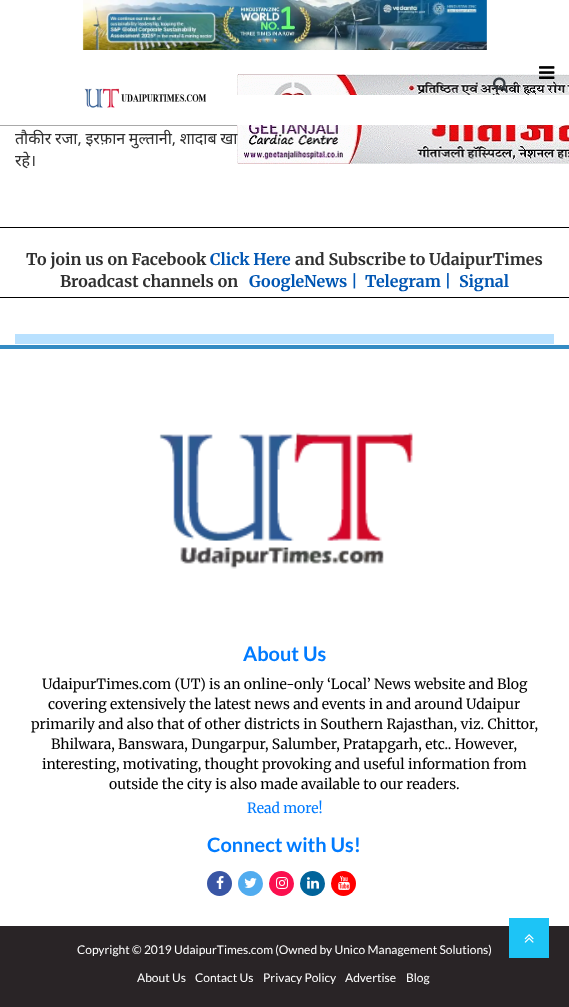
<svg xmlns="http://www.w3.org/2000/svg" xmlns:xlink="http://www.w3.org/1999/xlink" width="569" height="1007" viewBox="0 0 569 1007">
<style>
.cls-1{font:16px Noto Sans;fill:#303030}
.cls-2{font:bold 16px Merriweather;fill:#303030}
.cls-3{font:bold 16px Merriweather;fill:#0056b3}
.cls-4{font:bold 20px Lato;fill:#007bff}
.cls-5{font:14px Merriweather;fill:#000000}
.cls-6{font:14px Merriweather;fill:#007bff}
.cls-7{font:12px Lato;fill:#ffffff}
</style>
<rect width="100%" height="100%" fill="#ffffff"/>
<rect fill="#a9a9a9" x="0" y="125" width="237" height="1"/>
<image xlink:href="image0.png" x="82" y="0" width="405" height="50"/>
<image xlink:href="image1.png" x="84" y="88" width="122" height="20"/>
<image xlink:href="image2.png" x="237" y="74" width="332" height="90"/>
<rect fill="#ffffff" x="237" y="95" width="332" height="30"/>
<image xlink:href="image3.png" x="539" y="66" width="16" height="13"/>
<image xlink:href="image4.png" x="493" y="77" width="15" height="16"/>
<rect fill="#000000" x="0" y="227" width="569" height="1"/>
<rect fill="#000000" x="0" y="297" width="569" height="1"/>
<rect fill="#b9e1ff" x="15" y="334" width="539" height="10"/>
<rect fill="#338bc4" x="0" y="345" width="569" height="4"/>
<image xlink:href="image5.png" x="159" y="432" width="254" height="137"/>
<circle fill="#3956a5" cx="219.5" cy="883.5" r="12.5"/>
<image xlink:href="image6.png" x="216" y="876" width="8" height="13"/>
<circle fill="#51acef" cx="250.5" cy="883.5" r="12.5"/>
<image xlink:href="image7.png" x="244" y="878" width="13" height="10"/>
<circle fill="#fb104f" cx="281.5" cy="883.5" r="12.5"/>
<image xlink:href="image8.png" x="276" y="877" width="12" height="12"/>
<circle fill="#01649b" cx="312.5" cy="883.5" r="12.5"/>
<image xlink:href="image9.png" x="307" y="877" width="12" height="12"/>
<circle fill="#ff0000" cx="343.5" cy="883.5" r="12.5"/>
<image xlink:href="image10.png" x="338" y="876" width="12" height="14"/>
<rect fill="#292426" x="0" y="926" width="569" height="81"/>
<rect fill="#1dc4f6" x="509" y="918" width="40" height="40"/>
<image xlink:href="image11.png" x="524" y="934" width="10" height="9"/>
<text class="cls-1"><tspan x="15" y="144" word-spacing="-0.5">तौकीर रजा, इरफ़ान मुल्तानी, शादाब खा</tspan><tspan x="15" y="166">रहे।</tspan></text>
<text class="cls-2" x="26" y="265">To join us on Facebook</text>
<text class="cls-3" x="210" y="265">Click Here</text>
<text class="cls-2" x="295" y="265">and Subscribe to UdaipurTimes</text>
<text class="cls-2" x="60" y="287">Broadcast channels on</text>
<text class="cls-3" x="249" y="287">GoogleNews |</text>
<text class="cls-3" x="365" y="287">Telegram |</text>
<text class="cls-3" x="459" y="287">Signal</text>
<text class="cls-4" x="243" y="661">About Us</text>
<text class="cls-5" x="42" y="689">UdaipurTimes.com (UT) is an online-only ‘Local’ News website and Blog</text>
<text class="cls-5" x="48" y="709">covering extensively the latest news and events in and around Udaipur</text>
<text class="cls-5" x="31" y="729">primarily and also that of other districts in Southern Rajasthan, viz. Chittor,</text>
<text class="cls-5" x="51" y="749">Bhilwara, Banswara, Dungarpur, Salumber, Pratapgarh, etc.. However,</text>
<text class="cls-5" x="42" y="769">interesting, motivating, thought provoking and useful information from</text>
<text class="cls-5" x="109" y="789">outside the city is also made available to our readers.</text>
<text class="cls-6" x="247" y="813">Read more!</text>
<text class="cls-4" x="207" y="852">Connect with Us!</text>
<text class="cls-7" x="77" y="954">Copyright © 2019 UdaipurTimes.com (Owned by Unico Management Solutions)</text>
<text class="cls-7" x="137" y="982">About Us</text>
<text class="cls-7" x="195" y="982">Contact Us</text>
<text class="cls-7" x="263" y="982">Privacy Policy</text>
<text class="cls-7" x="345" y="982">Advertise</text>
<text class="cls-7" x="406" y="982">Blog</text>
</svg>
